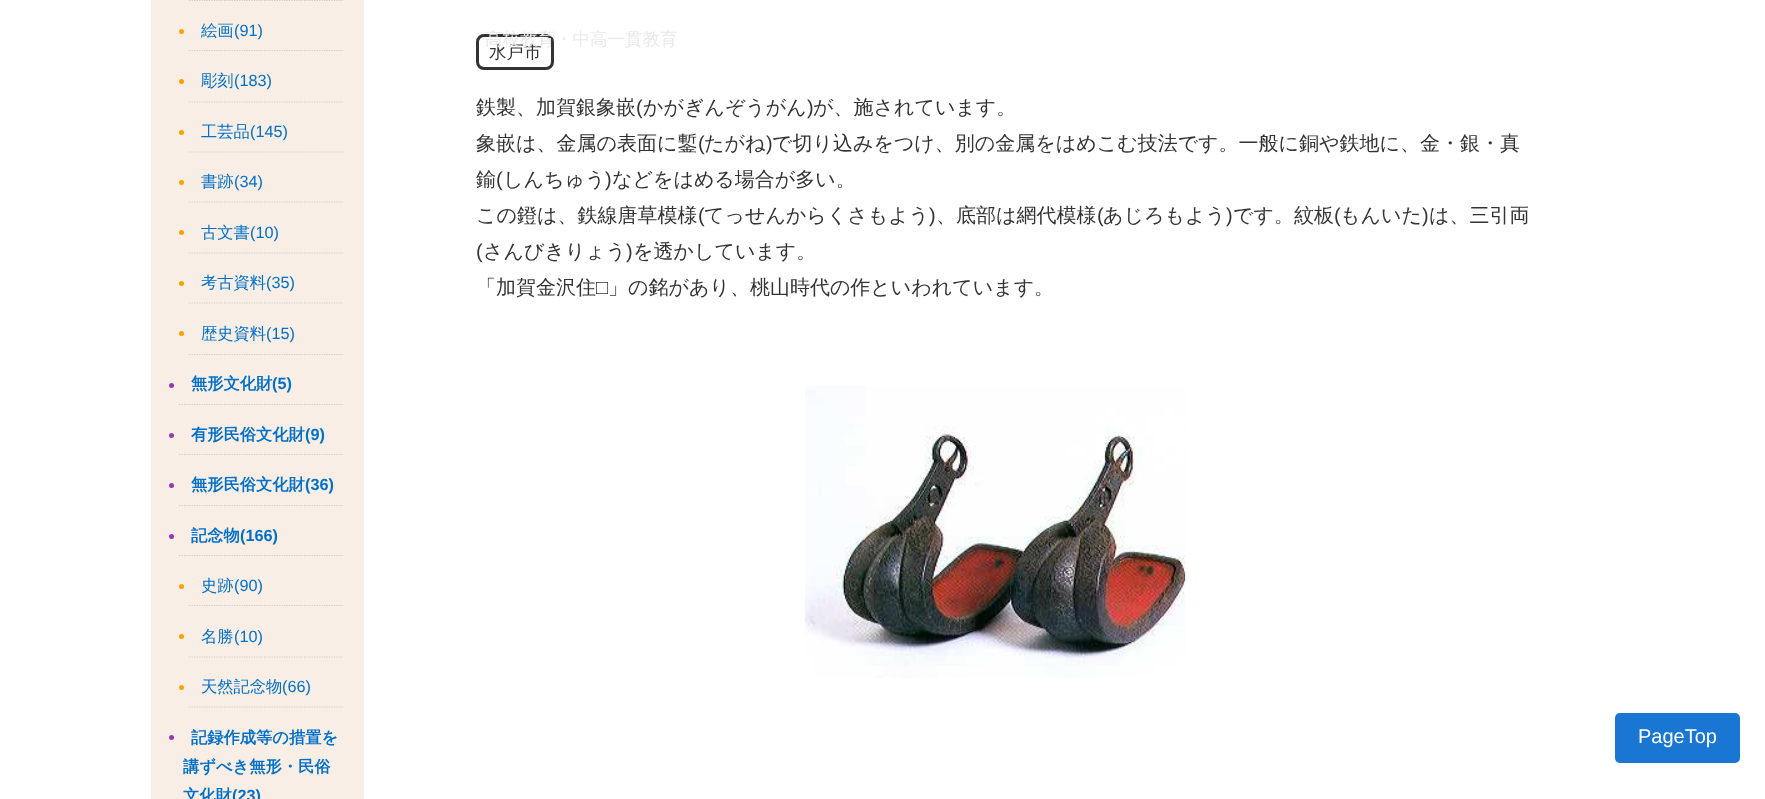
<svg xmlns="http://www.w3.org/2000/svg" xmlns:xlink="http://www.w3.org/1999/xlink" width="1765" height="799" viewBox="0 0 1765 799">
<style>
.cls-1{font:500 16.25px WenQuanYi Zen Hei;fill:#0070c9}
.cls-2{font:16.25px Liberation Sans;fill:#0070c9}
.cls-3{font:bold 16.25px WenQuanYi Zen Hei;fill:#0070c9}
.cls-4{font:bold 16.25px Liberation Sans;fill:#0070c9}
.cls-5{font:500 17.5px WenQuanYi Zen Hei;fill:#333333}
.cls-6{font:500 20px WenQuanYi Zen Hei;fill:#333333}
.cls-7{font:20px Liberation Sans;fill:#333333}
.cls-8{font:500 17.5px WenQuanYi Zen Hei;fill:#e9e9e9}
.cls-9{font:20px Liberation Sans;fill:#ffffff}
</style>
<rect width="100%" height="100%" fill="#ffffff"/>
<rect fill="#f8eee5" x="151" y="0" width="213" height="799"/>
<path fill="none" stroke="#cccccc" stroke-width="1.2" stroke-dasharray="1.25 1.25" d="M189 .5H344"/>
<path fill="none" stroke="#cccccc" stroke-width="1.2" stroke-dasharray="1.25 1.25" d="M189 50.5H344"/>
<circle fill="#ffa000" cx="181.5" cy="31.5" r="2.5"/>
<path fill="none" stroke="#cccccc" stroke-width="1.2" stroke-dasharray="1.25 1.25" d="M189 102H344"/>
<circle fill="#ffa000" cx="181.5" cy="81.5" r="2.5"/>
<path fill="none" stroke="#cccccc" stroke-width="1.2" stroke-dasharray="1.25 1.25" d="M189 152H344"/>
<circle fill="#ffa000" cx="181.5" cy="132.5" r="2.5"/>
<path fill="none" stroke="#cccccc" stroke-width="1.2" stroke-dasharray="1.25 1.25" d="M189 202H344"/>
<circle fill="#ffa000" cx="181.5" cy="182.5" r="2.5"/>
<path fill="none" stroke="#cccccc" stroke-width="1.2" stroke-dasharray="1.25 1.25" d="M189 253H344"/>
<circle fill="#ffa000" cx="181.5" cy="232.5" r="2.5"/>
<path fill="none" stroke="#cccccc" stroke-width="1.2" stroke-dasharray="1.25 1.25" d="M189 303H344"/>
<circle fill="#ffa000" cx="181.5" cy="283.5" r="2.5"/>
<path fill="none" stroke="#cccccc" stroke-width="1.2" stroke-dasharray="1.25 1.25" d="M189 354.5H344"/>
<circle fill="#ffa000" cx="181.5" cy="333.5" r="2.5"/>
<path fill="none" stroke="#cccccc" stroke-width="1.2" stroke-dasharray="1.25 1.25" d="M179 404.5H344"/>
<circle fill="#9e35b1" cx="171.5" cy="385.5" r="2.5"/>
<path fill="none" stroke="#cccccc" stroke-width="1.2" stroke-dasharray="1.25 1.25" d="M179 454.5H344"/>
<circle fill="#9e35b1" cx="171.5" cy="435.5" r="2.5"/>
<path fill="none" stroke="#cccccc" stroke-width="1.2" stroke-dasharray="1.25 1.25" d="M179 505.5H344"/>
<circle fill="#9e35b1" cx="171.5" cy="485.5" r="2.5"/>
<path fill="none" stroke="#cccccc" stroke-width="1.2" stroke-dasharray="1.25 1.25" d="M179 555.5H344"/>
<circle fill="#9e35b1" cx="171.5" cy="536.5" r="2.5"/>
<path fill="none" stroke="#cccccc" stroke-width="1.2" stroke-dasharray="1.25 1.25" d="M189 605.5H344"/>
<circle fill="#ffa000" cx="181.5" cy="586.5" r="2.5"/>
<path fill="none" stroke="#cccccc" stroke-width="1.2" stroke-dasharray="1.25 1.25" d="M189 657H344"/>
<circle fill="#ffa000" cx="181.5" cy="636.5" r="2.5"/>
<path fill="none" stroke="#cccccc" stroke-width="1.2" stroke-dasharray="1.25 1.25" d="M189 707H344"/>
<circle fill="#ffa000" cx="181.5" cy="687.5" r="2.5"/>
<circle fill="#9e35b1" cx="171.5" cy="737.5" r="2.5"/>
<rect fill="none" stroke="#333333" stroke-width="3" x="477.5" y="35.5" width="75" height="33" rx="6.5"/>
<image xlink:href="image0.png" x="805" y="386" width="381" height="292"/>
<rect fill="#1976d2" x="1615" y="713" width="125" height="50" rx="5"/>
<text class="cls-1" x="201" y="36">絵画</text>
<text class="cls-2" x="234" y="36">(91)</text>
<text class="cls-1" x="201" y="86">彫刻</text>
<text class="cls-2" x="234" y="86">(183)</text>
<text class="cls-1" x="201" y="137">工芸品</text>
<text class="cls-2" x="250" y="137">(145)</text>
<text class="cls-1" x="201" y="187">書跡</text>
<text class="cls-2" x="234" y="187">(34)</text>
<text class="cls-1" x="201" y="238">古文書</text>
<text class="cls-2" x="250" y="238">(10)</text>
<text class="cls-1" x="201" y="288">考古資料</text>
<text class="cls-2" x="266" y="288">(35)</text>
<text class="cls-1" x="201" y="339">歴史資料</text>
<text class="cls-2" x="266" y="339">(15)</text>
<text class="cls-3" x="191" y="389">無形文化財</text>
<text class="cls-4" x="272" y="389">(5)</text>
<text class="cls-3" x="191" y="440">有形民俗文化財</text>
<text class="cls-4" x="305" y="440">(9)</text>
<text class="cls-3" x="191" y="490">無形民俗文化財</text>
<text class="cls-4" x="305" y="490">(36)</text>
<text class="cls-3" x="191" y="541">記念物</text>
<text class="cls-4" x="240" y="541">(166)</text>
<text class="cls-1" x="201" y="591">史跡</text>
<text class="cls-2" x="234" y="591">(90)</text>
<text class="cls-1" x="201" y="642">名勝</text>
<text class="cls-2" x="234" y="642">(10)</text>
<text class="cls-1" x="201" y="692">天然記念物</text>
<text class="cls-2" x="282" y="692">(66)</text>
<text class="cls-3" x="191" y="743">記録作成等の措置を</text>
<text class="cls-3"><tspan x="183" y="772">講ずべき無形・民俗</tspan><tspan x="183" y="801">文化財</tspan></text>
<text class="cls-4" x="232" y="801">(23)</text>
<text class="cls-5" x="489" y="58">水戸市</text>
<text class="cls-6" x="476" y="114">鉄製、加賀銀象嵌</text>
<text class="cls-7" x="636" y="114">(</text>
<text class="cls-6" x="643" y="114">かがぎんぞうがん</text>
<text class="cls-7" x="807" y="114">)</text>
<text class="cls-6" x="813" y="114">が、施されています。</text>
<text class="cls-6" x="476" y="150">象嵌は、金属の表面に鏨</text>
<text class="cls-7" x="698" y="150">(</text>
<text class="cls-6" x="704" y="150">たがね</text>
<text class="cls-7" x="766" y="150">)</text>
<text class="cls-6" x="772" y="150">で切り込みをつけ、別の金属をはめこむ技法です。一般に銅や鉄地に、金・銀・真</text>
<text class="cls-6" x="476" y="186">鍮</text>
<text class="cls-7" x="496" y="186">(</text>
<text class="cls-6" x="503" y="186">しんちゅう</text>
<text class="cls-7" x="605" y="186">)</text>
<text class="cls-6" x="612" y="186">などをはめる場合が多い。</text>
<text class="cls-6" x="476" y="222">この鐙は、鉄線唐草模様</text>
<text class="cls-7" x="698" y="222">(</text>
<text class="cls-6" x="704" y="222">てっせんからくさもよう</text>
<text class="cls-7" x="929" y="222">)</text>
<text class="cls-6" x="936" y="222">、底部は網代模様</text>
<text class="cls-7" x="1097" y="222">(</text>
<text class="cls-6" x="1103" y="222">あじろもよう</text>
<text class="cls-7" x="1226" y="222">)</text>
<text class="cls-6" x="1233" y="222">です。紋板</text>
<text class="cls-7" x="1334" y="222">(</text>
<text class="cls-6" x="1340" y="222">もんいた</text>
<text class="cls-7" x="1422" y="222">)</text>
<text class="cls-6" x="1429" y="222">は、三引両</text>
<text class="cls-7" x="476" y="258">(</text>
<text class="cls-6" x="483" y="258">さんびきりょう</text>
<text class="cls-7" x="626" y="258">)</text>
<text class="cls-6" x="633" y="258">を透かしています。</text>
<text class="cls-6" x="476" y="294">「加賀金沢住</text>
<text class="cls-7" x="596" y="294">□</text>
<text class="cls-6" x="608" y="294">」の銘があり、桃山時代の作といわれています。</text>
<text class="cls-8" x="485" y="45">高校教育・中高一貫教育</text>
<text class="cls-9" x="1638" y="743">PageTop</text>
</svg>
